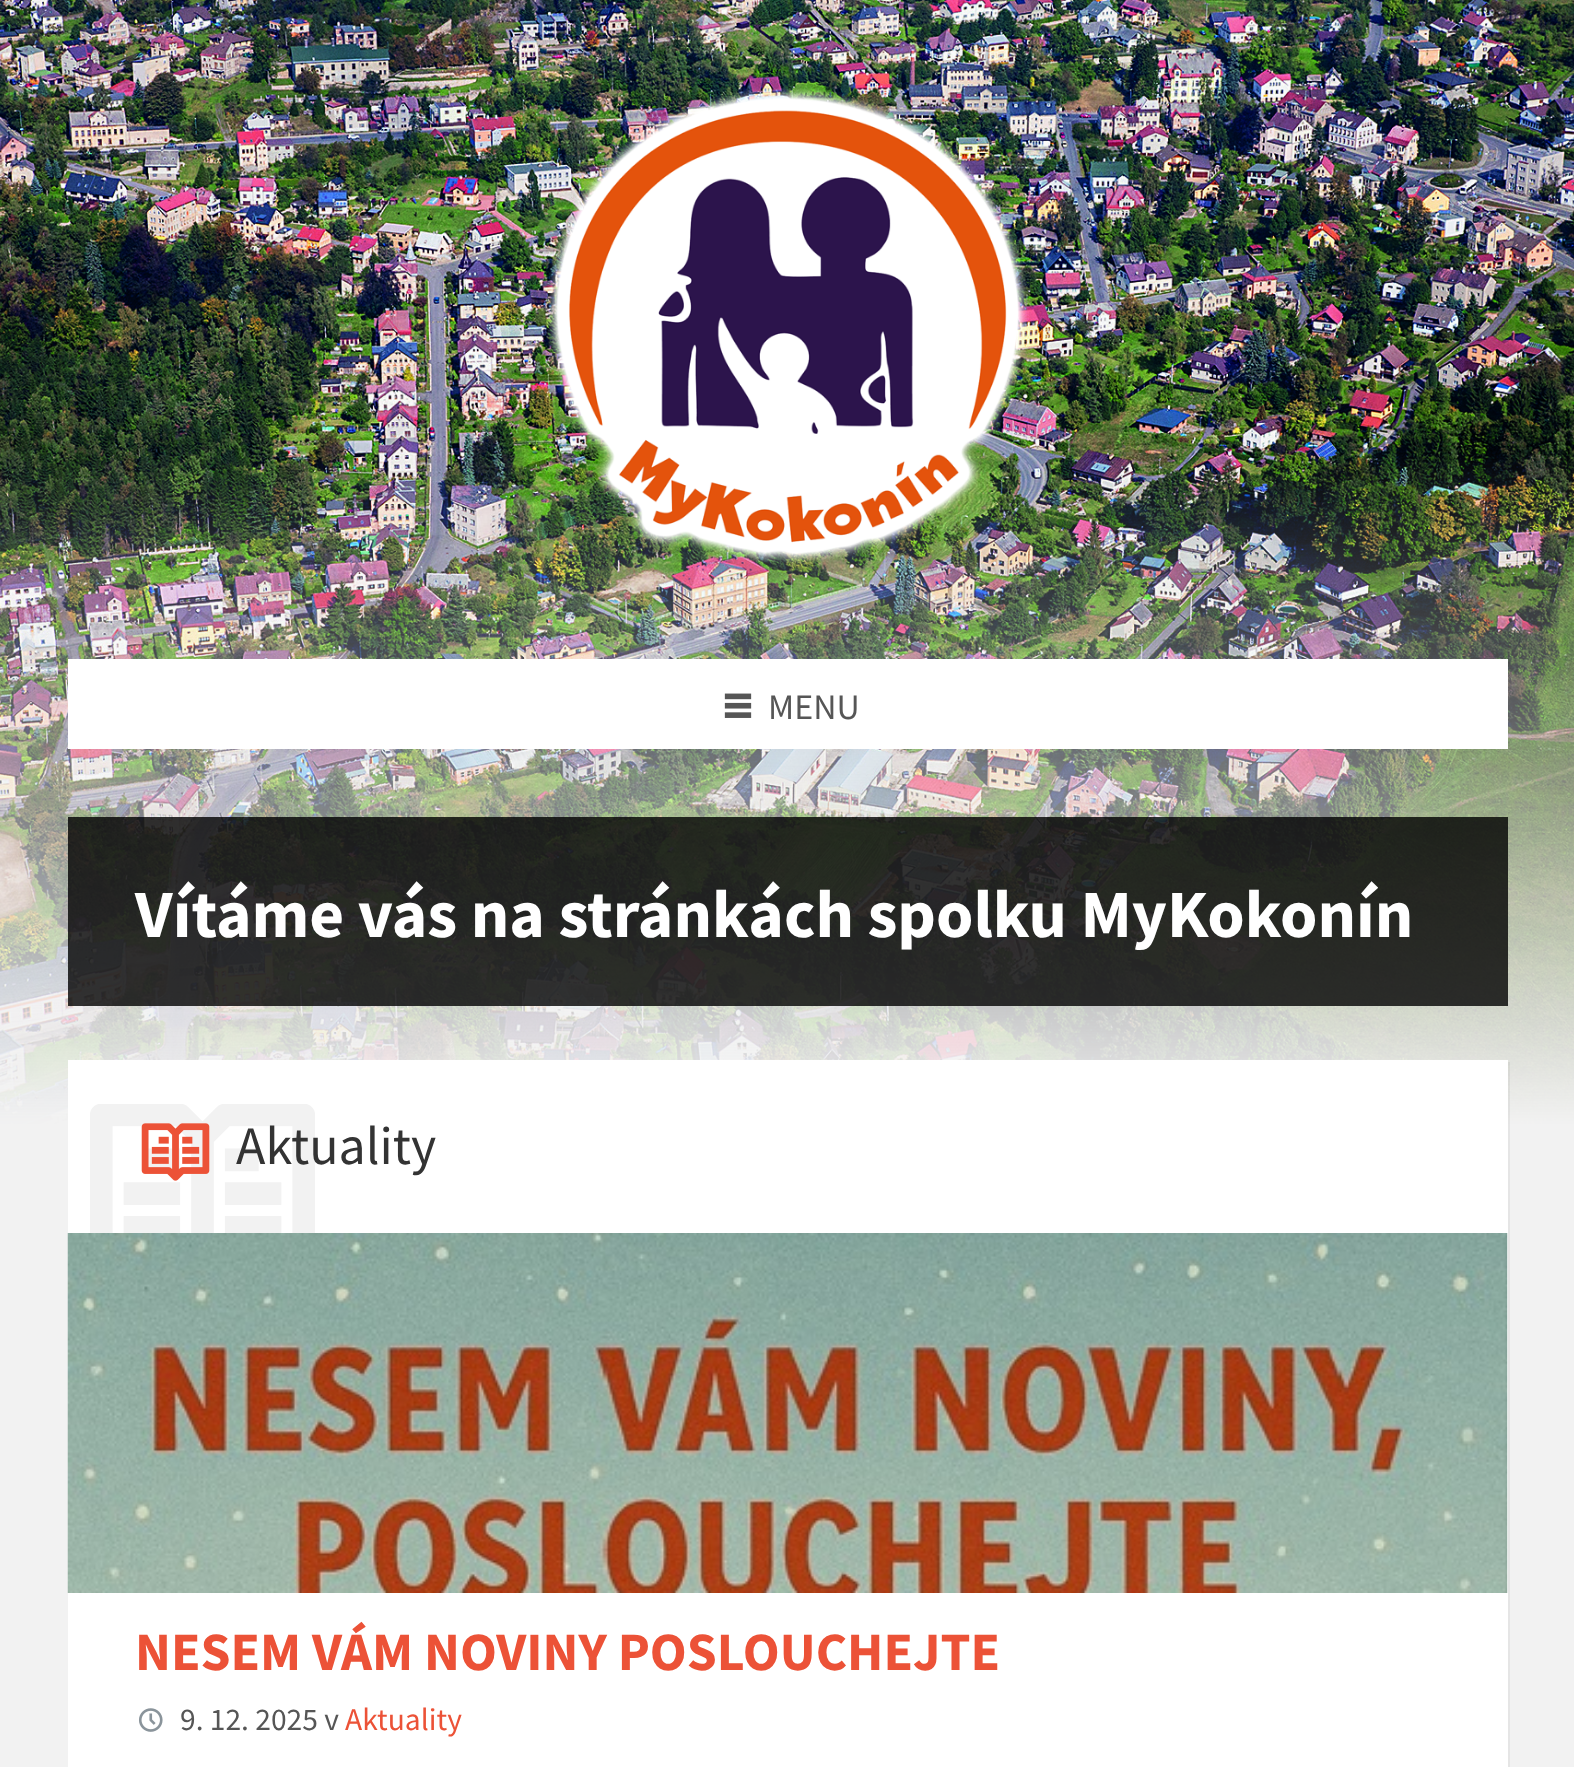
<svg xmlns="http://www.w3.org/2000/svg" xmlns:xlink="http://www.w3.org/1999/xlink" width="1574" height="1767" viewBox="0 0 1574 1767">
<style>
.cls-1{font:36px Source Sans Pro;fill:#565656}
.cls-2{font:bold 67.5px Source Sans Pro;fill:#ffffff}
.cls-3{font:54px Source Sans Pro;fill:#333333}
.cls-4{font:bold 54px Source Sans Pro;fill:#ec5237}
.cls-5{font:31.5px Source Sans Pro;fill:#565656}
.cls-6{font:31.5px Source Sans Pro;fill:#ec5237}
</style>
<rect width="100%" height="100%" fill="#f2f2f2"/>
<image xlink:href="image0.png" x="0" y="0" width="1574" height="1125"/>
<image xlink:href="image1.png" x="546" y="88" width="483" height="477"/>
<rect fill="#ffffff" x="68" y="659" width="1440" height="90"/>
<image xlink:href="image2.png" x="724" y="693" width="28" height="25"/>
<rect fill="#000000" fill-opacity="0.8" x="68" y="817" width="1440" height="189"/>
<path fill="#000000" fill-opacity="0.05" d="M70 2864V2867H1510V1062H1508V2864Z"/>
<rect fill="#ffffff" x="68" y="1060" width="1440" height="707"/>
<image xlink:href="image3.png" x="90" y="1104" width="225" height="129"/>
<image xlink:href="image4.png" x="141" y="1123" width="69" height="58"/>
<image xlink:href="image5.png" x="67" y="1233" width="1441" height="360"/>
<image xlink:href="image6.png" x="139" y="1708" width="24" height="24"/>
<text class="cls-1" x="768" y="719">MENU</text>
<text class="cls-2" x="135" y="937">Vítáme vás na stránkách spolku MyKokonín</text>
<text class="cls-3" x="236" y="1164">Aktuality</text>
<text class="cls-4" x="135" y="1670">NESEM VÁM NOVINY POSLOUCHEJTE</text>
<text class="cls-5" x="180" y="1730">9. 12. 2025 v</text>
<text class="cls-6" x="345" y="1730">Aktuality</text>
</svg>
